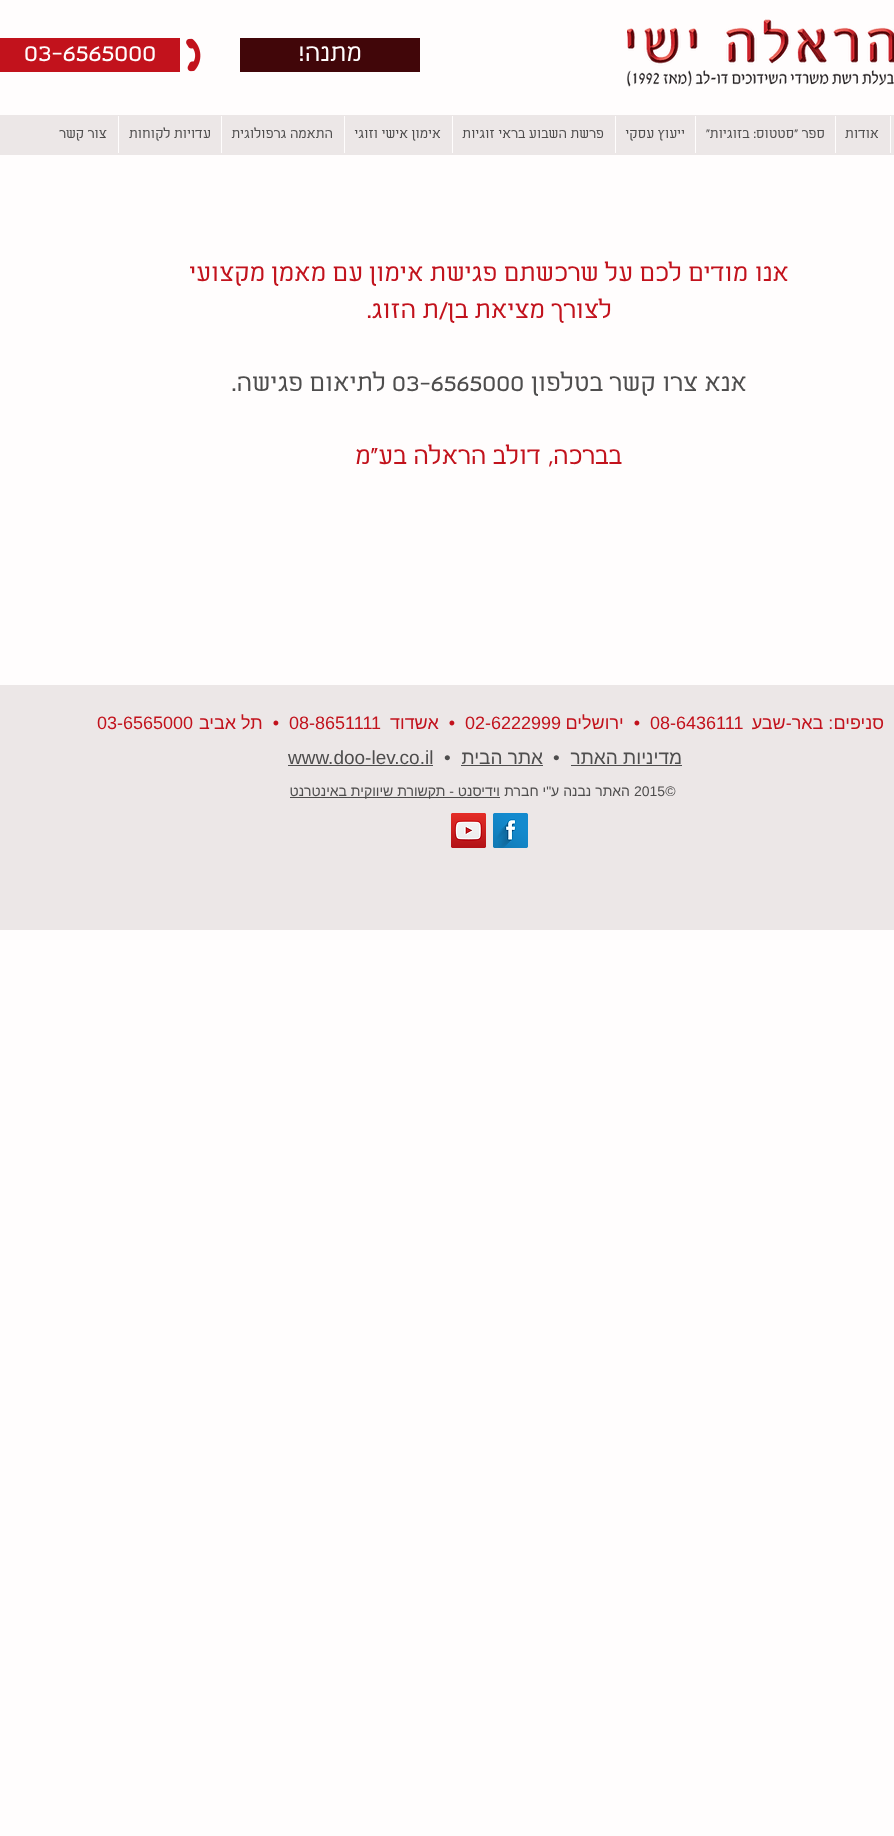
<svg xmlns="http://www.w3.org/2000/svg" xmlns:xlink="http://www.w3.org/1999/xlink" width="894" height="1836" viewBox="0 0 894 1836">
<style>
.cls-1{font:24px 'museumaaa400';direction:rtl;fill:#fffdfd}
.cls-2{font:24px 'museumaaa400';fill:#fffdfd}
.cls-3{font:13px 'museumaaa400';direction:rtl;fill:#4e4d4d}
.cls-4{font:13px 'museumaaa400';fill:#4e4d4d}
.cls-5{font:24px 'museumaaa400';direction:rtl;fill:#c2121c}
.cls-6{font:24px 'museumaaa400';direction:rtl;fill:#4e4d4d}
.cls-7{font:24px 'museumaaa400';fill:#4e4d4d}
.cls-8{font:18px Liberation Sans;direction:rtl;fill:#c2121c}
.cls-9{font:18px Liberation Sans;fill:#c2121c}
.cls-10{font:19px Liberation Sans;direction:rtl;fill:#4e4d4d}
.cls-11{font:19px Liberation Sans;fill:#4e4d4d}
.cls-12{font:14px Liberation Sans;fill:#4e4d4d}
.cls-13{font:14px Liberation Sans;direction:rtl;fill:#4e4d4d}
</style>
<rect width="100%" height="100%" fill="#fffdfd"/>
<image xlink:href="image0.png" x="627" y="19" width="267" height="68"/>
<rect fill="#410609" x="240" y="38" width="180" height="34"/>
<image xlink:href="image1.png" x="186" y="38" width="15" height="34"/>
<rect fill="#c2121c" x="0" y="38" width="180" height="34"/>
<rect fill="#ece7e7" x="0" y="115" width="894" height="40"/>
<rect fill="#fffdfd" x="890" y="116" width="1" height="37"/>
<rect fill="#fffdfd" x="835" y="116" width="1" height="37"/>
<rect fill="#fffdfd" x="695" y="116" width="1" height="37"/>
<rect fill="#fffdfd" x="615" y="116" width="1" height="37"/>
<rect fill="#fffdfd" x="452" y="116" width="1" height="37"/>
<rect fill="#fffdfd" x="344" y="116" width="1" height="37"/>
<rect fill="#fffdfd" x="221" y="116" width="1" height="37"/>
<rect fill="#fffdfd" x="118" y="116" width="1" height="37"/>
<rect fill="#ece7e7" x="0" y="685" width="894" height="245"/>
<rect fill="#4e4d4d" x="571" y="765" width="111" height="1"/>
<rect fill="#4e4d4d" x="461" y="765" width="82" height="1"/>
<rect fill="#4e4d4d" x="288" y="765" width="145" height="1"/>
<rect fill="#4e4d4d" x="290" y="797" width="210" height="1"/>
<image xlink:href="image2.png" x="493" y="813" width="35" height="35"/>
<image xlink:href="image3.png" x="451" y="813" width="35" height="35"/>
<text class="cls-1" x="362" y="61">מתנה</text>
<text class="cls-2" x="298" y="61">!</text>
<text class="cls-2" x="24" y="61">03-6565000</text>
<text class="cls-3" x="879" y="138">אודות</text>
<text class="cls-4" x="706" y="138">"</text>
<text class="cls-3" x="825" y="138">ספר "סטטוס: בזוגיות</text>
<text class="cls-3" x="685" y="138">ייעוץ עסקי</text>
<text class="cls-3" x="604" y="138">פרשת השבוע בראי זוגיות</text>
<text class="cls-3" x="441" y="138">אימון אישי וזוגי</text>
<text class="cls-3" x="333" y="138">התאמה גרפולוגית</text>
<text class="cls-3" x="211" y="138">עדויות לקוחות</text>
<text class="cls-3" x="107" y="138">צור קשר</text>
<text class="cls-5" x="789" y="281">אנו מודים לכם על שרכשתם פגישת אימון עם מאמן מקצועי</text>
<text class="cls-5" x="612" y="318">לצורך מציאת בן/ת הזוג.</text>
<text class="cls-6" x="747" y="391">אנא צרו קשר בטלפון</text>
<text class="cls-7" x="392" y="391">03-6565000</text>
<text class="cls-6" x="386" y="391">לתיאום פגישה.</text>
<text class="cls-5" x="622" y="464">בברכה, דולב הראלה בע"מ</text>
<text class="cls-8" x="884" y="729">סניפים: באר-שבע</text>
<text class="cls-9" x="650" y="729">08-6436111</text>
<text class="cls-8" xml:space="preserve" x="640" y="729">•  ירושלים</text>
<text class="cls-9" x="465" y="729">02-6222999</text>
<text class="cls-8" xml:space="preserve" x="455" y="729">•  אשדוד</text>
<text class="cls-9" x="289" y="729">08-8651111</text>
<text class="cls-8" xml:space="preserve" x="279" y="729">•  תל אביב</text>
<text class="cls-9" x="97" y="729">03-6565000</text>
<text class="cls-10" x="682" y="764">מדיניות האתר</text>
<text class="cls-11" x="553" y="764">•</text>
<text class="cls-10" x="543" y="764">אתר הבית</text>
<text class="cls-11" x="444" y="764">•</text>
<text class="cls-11" x="288" y="764">www.doo-lev.co.il</text>
<text class="cls-12" x="634" y="796">2015©</text>
<text class="cls-13" x="630" y="796">האתר נבנה ע"י חברת</text>
<text class="cls-13" x="500" y="796">וידיסנט - תקשורת שיווקית באינטרנט</text>
</svg>
